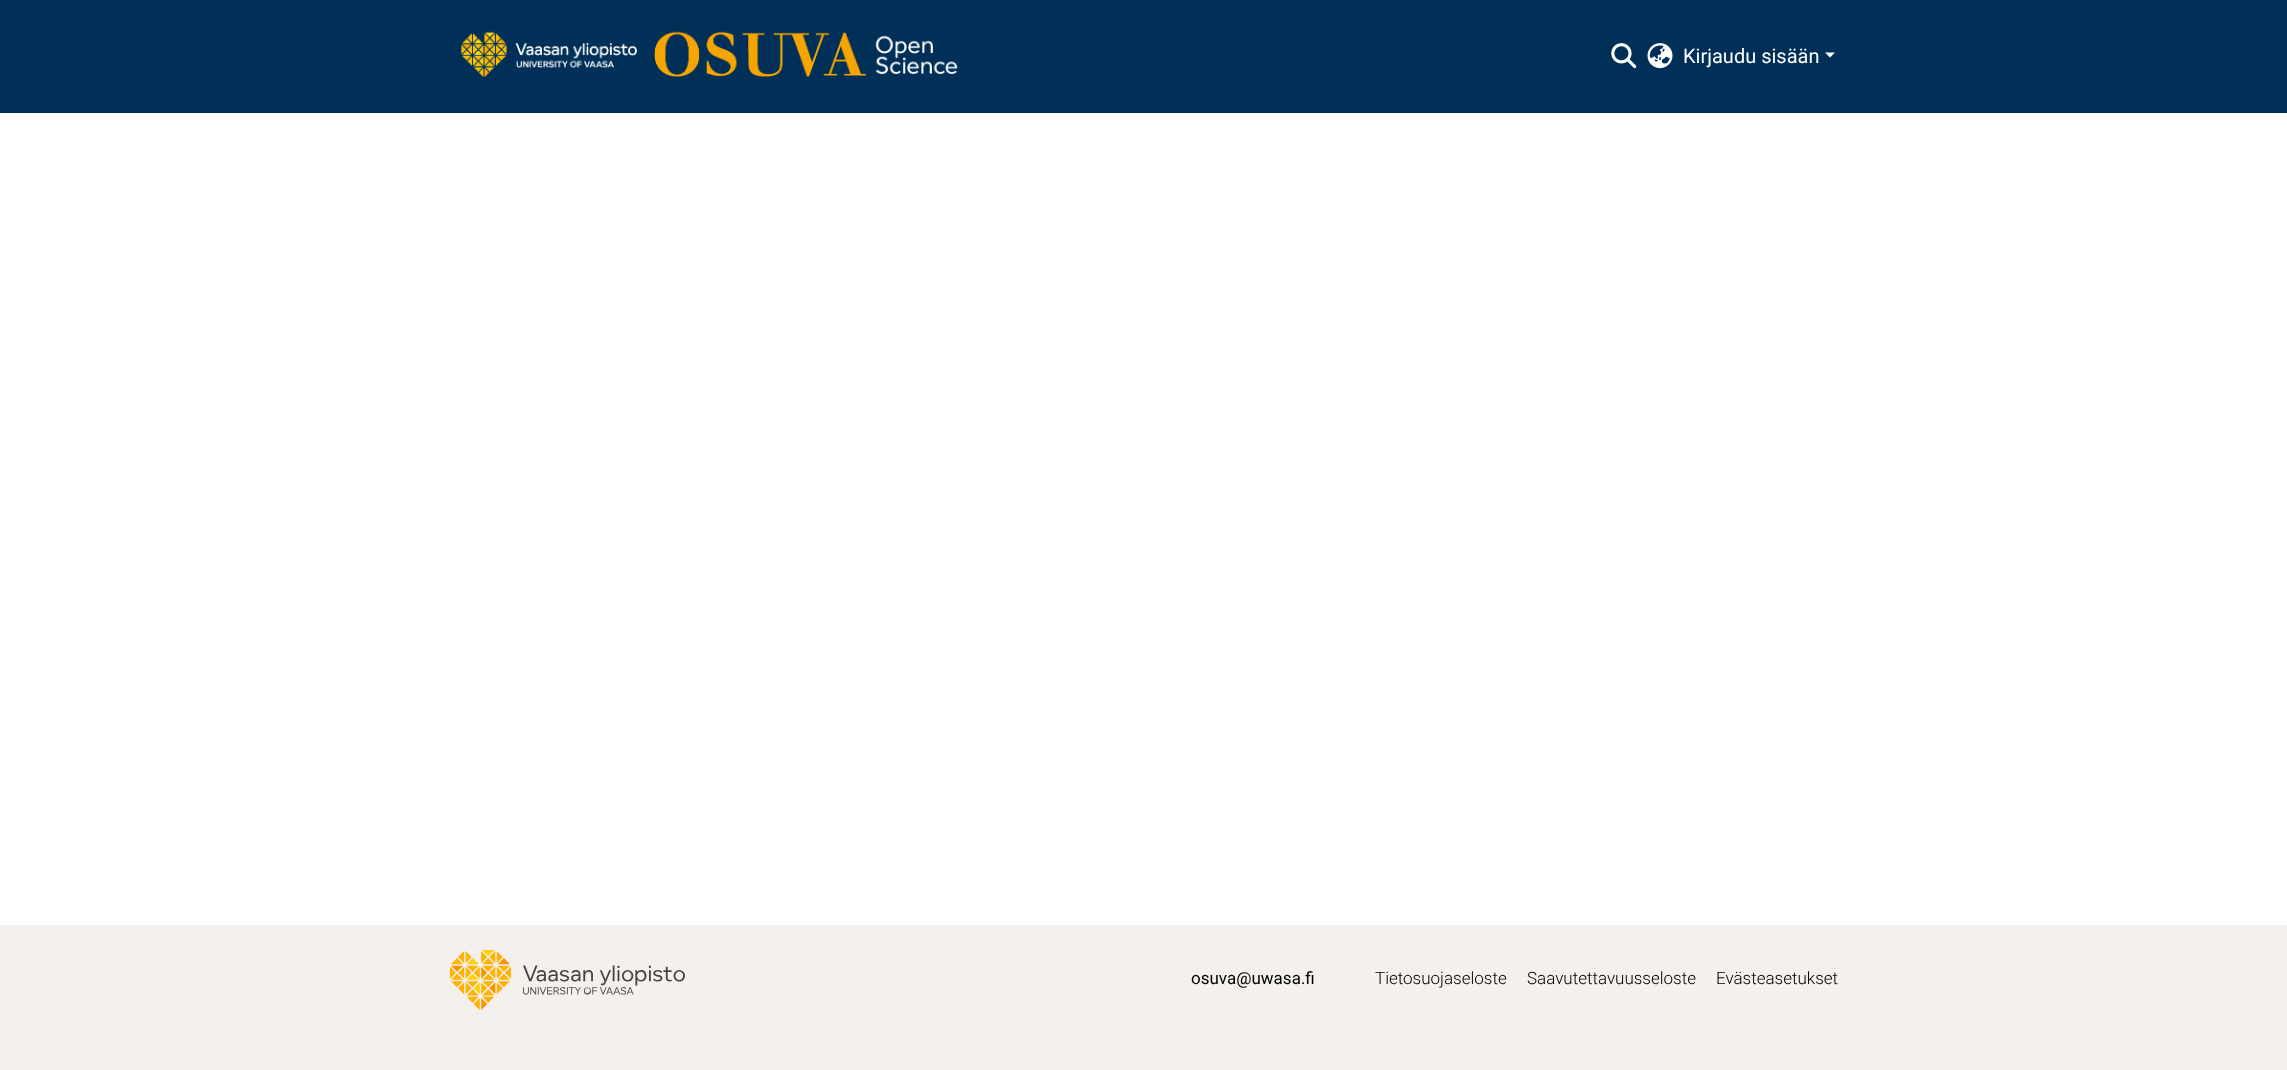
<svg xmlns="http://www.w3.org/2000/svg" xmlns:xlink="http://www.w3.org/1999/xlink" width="2287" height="1070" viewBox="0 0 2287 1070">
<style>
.cls-1{font:20px Roboto;fill:#ffffff}
.cls-2{font:17px Roboto;fill:#000000}
.cls-3{font:300 17px Roboto;fill:#000000}
</style>
<rect width="100%" height="100%" fill="#ffffff"/>
<rect fill="#003057" x="0" y="0" width="2287" height="113"/>
<image xlink:href="image0.png" x="460" y="31" width="498" height="46"/>
<image xlink:href="image1.png" x="1611" y="43" width="26" height="26"/>
<image xlink:href="image2.png" x="1647" y="43" width="26" height="26"/>
<path fill="#ffffff" d="M1825 52.5H1835L1830 57.5Z"/>
<rect fill="#f3f0ed" x="0" y="925" width="2287" height="145"/>
<image xlink:href="image3.png" x="450" y="950" width="235" height="60"/>
<text class="cls-1" x="1683" y="63">Kirjaudu sisään</text>
<text class="cls-2" x="1191" y="984">osuva@uwasa.fi</text>
<text class="cls-3" x="1375" y="984">Tietosuojaseloste</text>
<text class="cls-3" x="1527" y="984">Saavutettavuusseloste</text>
<text class="cls-3" x="1716" y="984">Evästeasetukset</text>
</svg>
